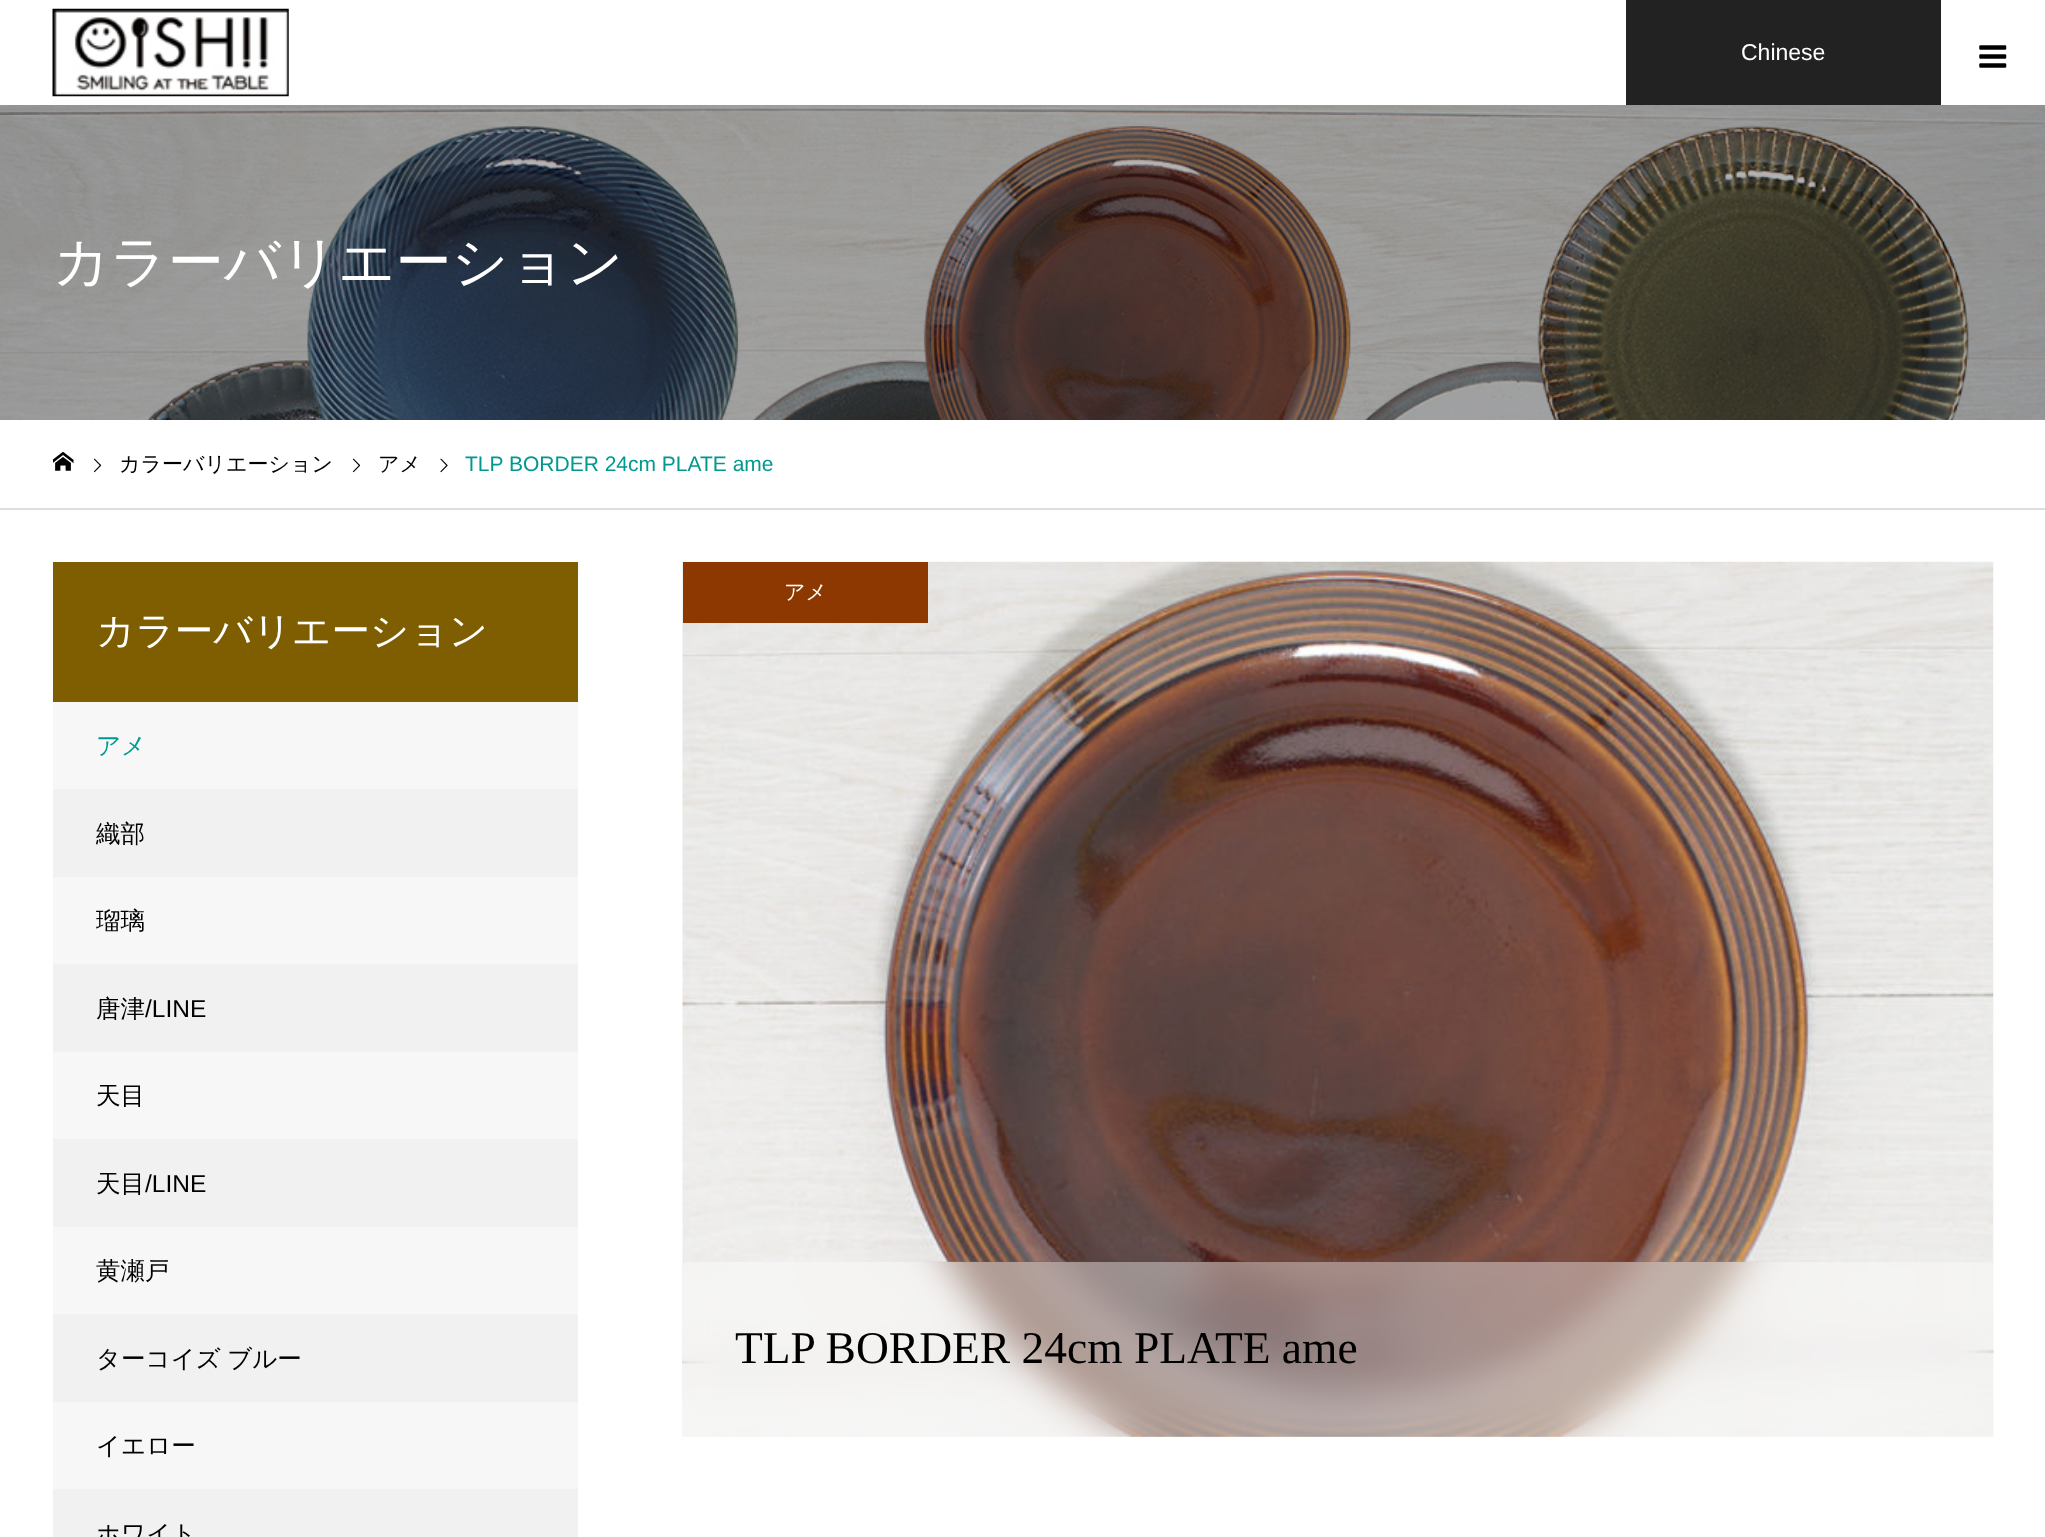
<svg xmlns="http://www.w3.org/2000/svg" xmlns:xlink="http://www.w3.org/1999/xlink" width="2045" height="1537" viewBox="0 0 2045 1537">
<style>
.cls-1{font:23px Liberation Sans;fill:#ffffff}
.cls-2{font:500 56px WenQuanYi Zen Hei;fill:#ffffff}
.cls-3{font:500 21px WenQuanYi Zen Hei;fill:#000000}
.cls-4{font:21px Liberation Sans;fill:#009991}
.cls-5{font:500 38.5px WenQuanYi Zen Hei;fill:#ffffff}
.cls-6{font:500 24.5px WenQuanYi Zen Hei;fill:#009991}
.cls-7{font:500 24.5px WenQuanYi Zen Hei;fill:#000000}
.cls-8{font:24.5px Liberation Sans;fill:#000000}
.cls-9{font:500 21px WenQuanYi Zen Hei;fill:#ffffff}
.cls-10{font:45.5px Liberation Serif;fill:#000000}
</style>
<rect width="100%" height="100%" fill="#ffffff"/>
<image xlink:href="image0.png" x="52" y="8" width="237" height="89"/>
<rect fill="#222222" x="1626" y="0" width="315" height="105"/>
<image xlink:href="image1.png" x="1979" y="45" width="28" height="23"/>
<image xlink:href="image2.png" x="0" y="105" width="2045" height="315"/>
<rect fill="#dddddd" x="0" y="508" width="2045" height="2"/>
<image xlink:href="image3.png" x="53" y="452" width="21" height="19"/>
<image xlink:href="image4.png" x="93" y="458" width="9" height="15"/>
<image xlink:href="image4.png" x="352" y="458" width="9" height="15"/>
<image xlink:href="image5.png" x="440" y="458" width="8" height="15"/>
<rect fill="#7f5e02" x="53" y="562" width="525" height="140"/>
<rect fill="#f7f7f8" x="53" y="702" width="525" height="87"/>
<rect fill="#f1f1f1" x="53" y="789" width="525" height="88"/>
<rect fill="#f7f7f8" x="53" y="877" width="525" height="87"/>
<rect fill="#f1f1f1" x="53" y="964" width="525" height="88"/>
<rect fill="#f7f7f8" x="53" y="1052" width="525" height="87"/>
<rect fill="#f1f1f1" x="53" y="1139" width="525" height="88"/>
<rect fill="#f7f7f8" x="53" y="1227" width="525" height="87"/>
<rect fill="#f1f1f1" x="53" y="1314" width="525" height="88"/>
<rect fill="#f7f7f8" x="53" y="1402" width="525" height="87"/>
<rect fill="#f1f1f1" x="53" y="1489" width="525" height="48"/>
<image xlink:href="image6.png" x="682" y="561" width="1312" height="876"/>
<rect fill="#8c3800" x="683" y="562" width="245" height="61"/>
<image xlink:href="image7.png" x="682" y="1261" width="1311" height="176"/>
<rect fill="#ffffff" fill-opacity="0.4" x="683" y="1262" width="1310" height="175"/>
<text class="cls-1" x="1741" y="60">Chinese</text>
<text class="cls-2" x="53" y="281">カラーバリエーション</text>
<text class="cls-3" x="119" y="471">カラーバリエーション</text>
<text class="cls-3" x="378" y="471">アメ</text>
<text class="cls-4" x="465" y="471">TLP BORDER 24cm PLATE ame</text>
<text class="cls-5" x="96" y="644">カラーバリエーション</text>
<text class="cls-6" x="96" y="754">アメ</text>
<text class="cls-7" x="96" y="842">織部</text>
<text class="cls-7" x="96" y="929">瑠璃</text>
<text class="cls-7" x="96" y="1017">唐津</text>
<text class="cls-8" x="145" y="1017">/LINE</text>
<text class="cls-7" x="96" y="1104">天目</text>
<text class="cls-7" x="96" y="1192">天目</text>
<text class="cls-8" x="145" y="1192">/LINE</text>
<text class="cls-7" x="96" y="1279">黄瀬戸</text>
<text class="cls-7" x="96" y="1367" word-spacing="-1">ターコイズ ブルー</text>
<text class="cls-7" x="96" y="1454">イエロー</text>
<text class="cls-7" x="96" y="1542">ホワイト</text>
<text class="cls-9" x="784" y="599">アメ</text>
<text class="cls-10" x="735" y="1363">TLP BORDER 24cm PLATE ame</text>
</svg>
